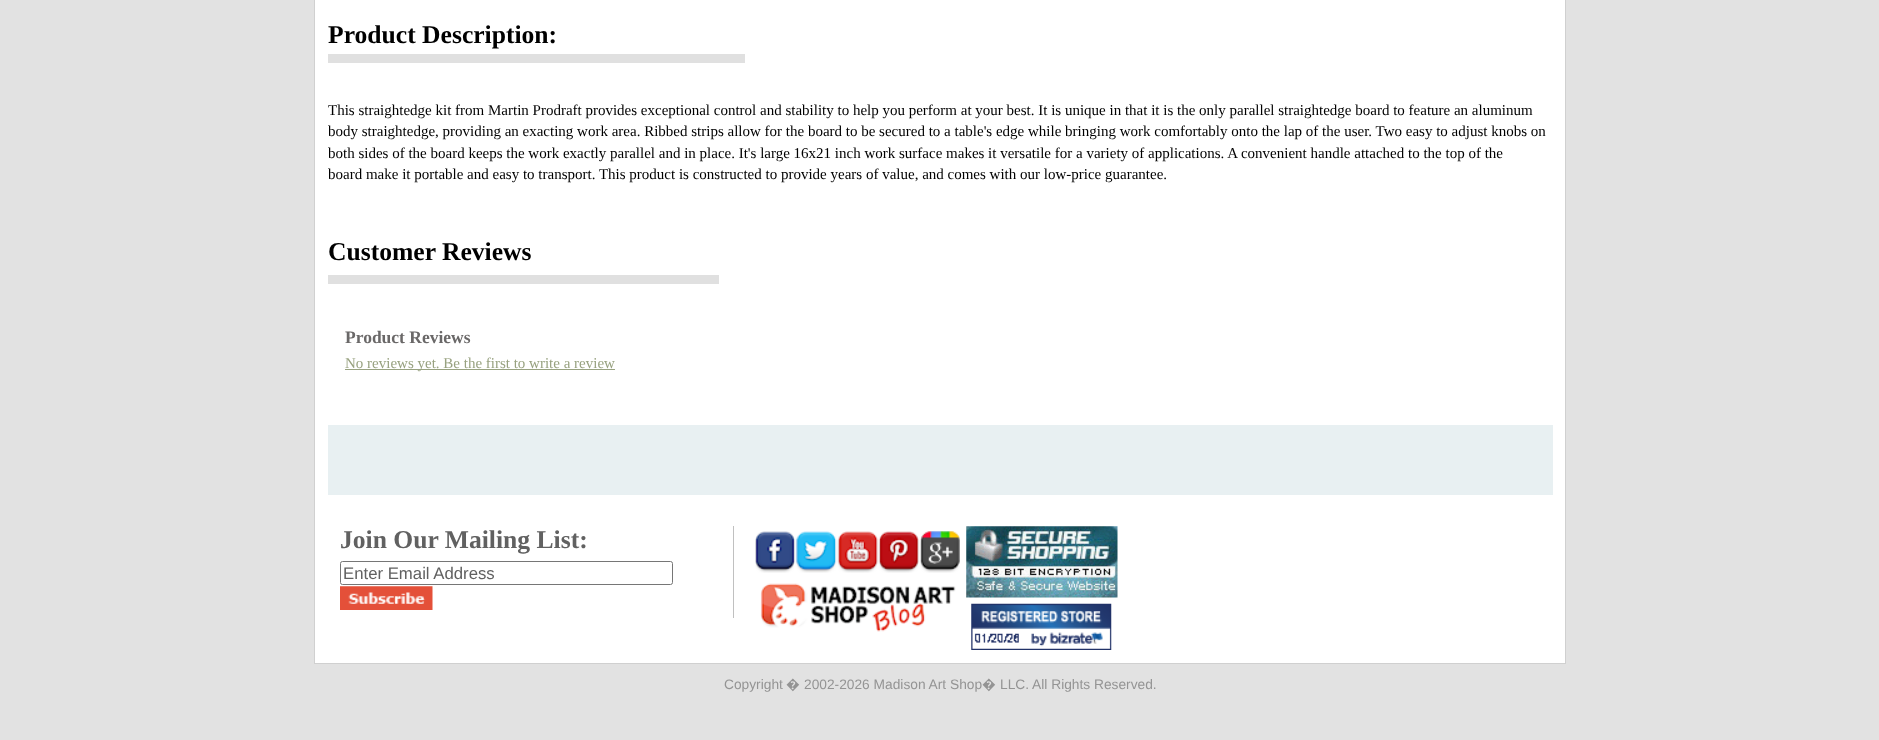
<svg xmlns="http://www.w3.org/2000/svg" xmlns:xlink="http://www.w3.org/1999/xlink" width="1879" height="740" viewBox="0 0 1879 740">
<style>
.cls-1{font:bold 25.6px Liberation Serif;fill:#000000}
.cls-2{font:15px Liberation Serif;fill:#000000}
.cls-3{font:bold 17.5px Liberation Serif;fill:#6a6868}
.cls-4{font:15px Liberation Serif;fill:#98a280}
.cls-5{font:bold 25.6px Liberation Serif;fill:#616161}
.cls-6{font:16.75px Liberation Sans;fill:#616161}
.cls-7{font:13.75px Liberation Sans;fill:#949494}
.cls-8{font:13.75px Noto Sans;fill:#949494}
</style>
<rect width="100%" height="100%" fill="#e2e2e2"/>
<rect fill="#ffffff" stroke="#d0d0d0" x="314.5" y="-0.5" width="1251" height="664"/>
<rect fill="#e0e0e0" x="328" y="54" width="417" height="9"/>
<rect fill="#e0e0e0" x="328" y="275" width="391" height="9"/>
<rect fill="#98a280" x="345" y="369" width="270" height="1"/>
<rect fill="none" stroke="#e8f0f2" stroke-width="13" x="334.5" y="431.5" width="1212" height="57"/>
<rect fill="#e8f0f2" x="341" y="438" width="1199" height="44"/>
<rect fill="#c0c0c0" x="733" y="526" width="1" height="92"/>
<rect fill="none" stroke="#767676" x="340.5" y="561.5" width="332" height="23" rx="2"/>
<image xlink:href="image0.png" x="340" y="586" width="93" height="24"/>
<image xlink:href="image1.png" x="755" y="531" width="205" height="42"/>
<image xlink:href="image2.png" x="760" y="583" width="196" height="49"/>
<image xlink:href="image3.png" x="966" y="526" width="152" height="72"/>
<image xlink:href="image4.png" x="971" y="603" width="141" height="47"/>
<text class="cls-1" x="328" y="43">Product Description:</text>
<text class="cls-2"><tspan x="328" y="115">This straightedge kit from Martin Prodraft provides exceptional control and stability to help you perform at your best. It is unique in that it is the only parallel straightedge board to feature an aluminum</tspan><tspan x="328" y="136">body straightedge, providing an exacting work area. Ribbed strips allow for the board to be secured to a table's edge while bringing work comfortably onto the lap of the user. Two easy to adjust knobs on</tspan><tspan x="328" y="158">both sides of the board keeps the work exactly parallel and in place. It's large 16x21 inch work surface makes it versatile for a variety of applications. A convenient handle attached to the top of the</tspan><tspan x="328" y="179">board make it portable and easy to transport. This product is constructed to provide years of value, and comes with our low-price guarantee.</tspan></text>
<text class="cls-1" x="328" y="260">Customer Reviews</text>
<text class="cls-3" x="345" y="343">Product Reviews</text>
<text class="cls-4" x="345" y="368">No reviews yet. Be the first to write a review</text>
<text class="cls-5" x="340" y="548">Join Our Mailing List:</text>
<text class="cls-6" x="343" y="579">Enter Email Address</text>
<text class="cls-7" x="724" y="689">Copyright</text>
<text class="cls-8" x="786" y="689">�</text>
<text class="cls-7" x="804" y="689">2002-2026 Madison Art Shop</text>
<text class="cls-8" x="982" y="689">�</text>
<text class="cls-7" x="1000" y="689">LLC. All Rights Reserved.</text>
</svg>
